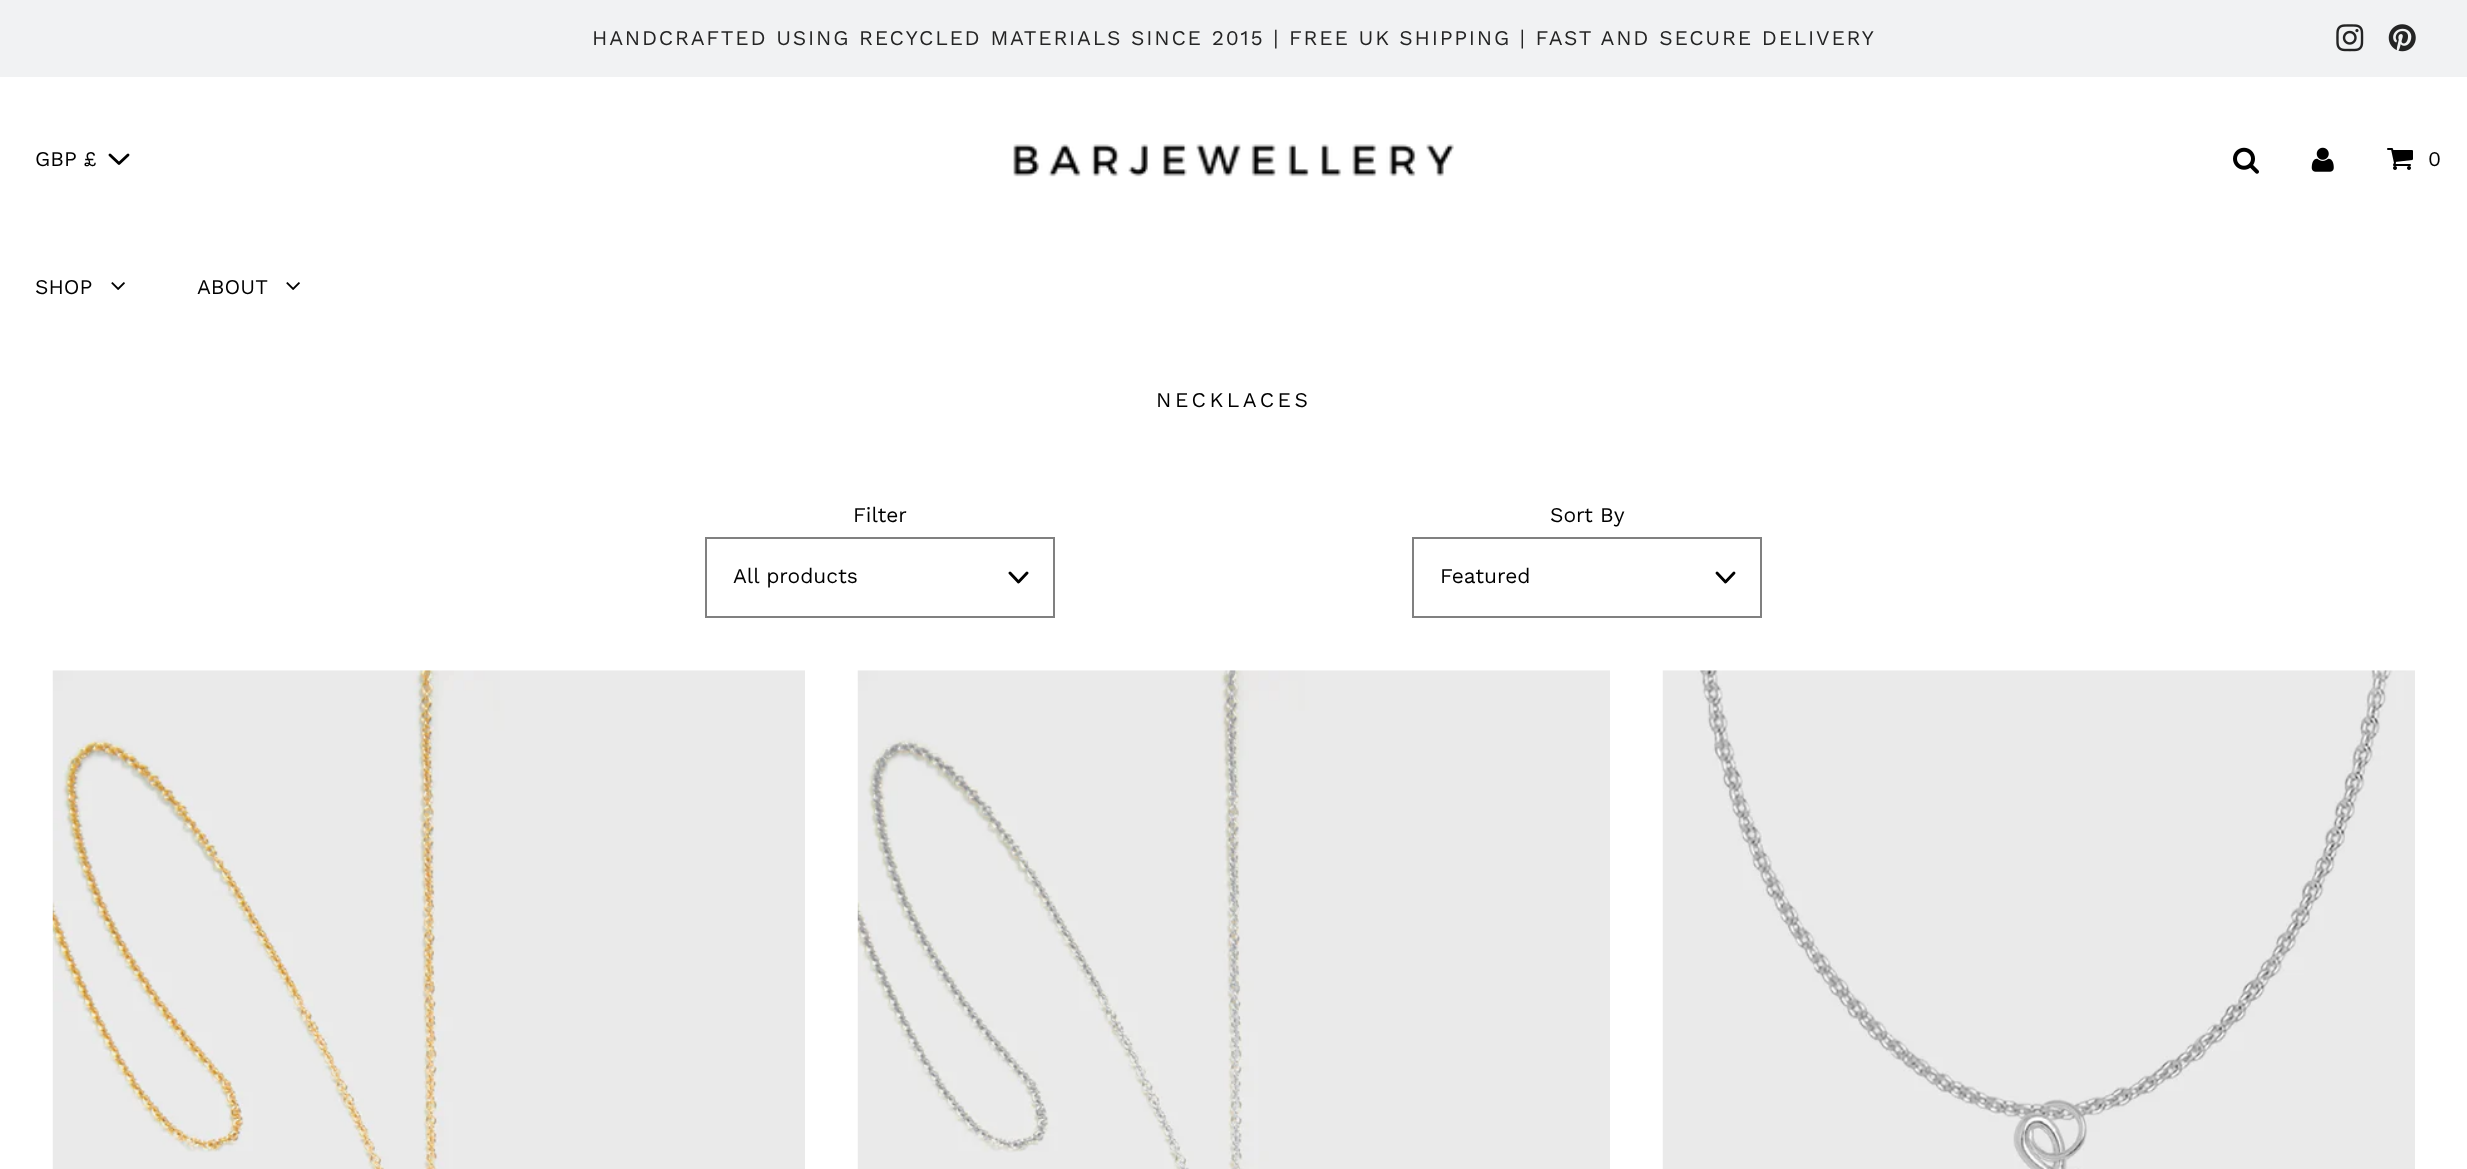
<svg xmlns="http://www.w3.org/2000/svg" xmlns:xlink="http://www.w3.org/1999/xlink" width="2467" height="1169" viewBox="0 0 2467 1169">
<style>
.cls-1{font:21px Work Sans;letter-spacing:1.75px;fill:#242424}
.cls-2{font:21px Work Sans;fill:#000000}
.cls-3{font:21px Work Sans;letter-spacing:3.5px;fill:#000000}
</style>
<rect width="100%" height="100%" fill="#ffffff"/>
<rect fill="#f1f2f3" x="0" y="0" width="2467" height="77"/>
<image xlink:href="image0.png" x="2336" y="24" width="28" height="28"/>
<image xlink:href="image1.png" x="2388" y="24" width="28" height="28"/>
<path fill="none" stroke="#000000" stroke-width="2.9" stroke-linecap="round" stroke-linejoin="round" d="M110 155L119 163.5L128 155"/>
<image xlink:href="image2.png" x="1013" y="144" width="441" height="33"/>
<image xlink:href="image3.png" x="2233" y="147" width="26" height="27"/>
<image xlink:href="image4.png" x="2311" y="147" width="23" height="25"/>
<image xlink:href="image5.png" x="2387" y="148" width="26" height="22"/>
<image xlink:href="image6.png" x="111" y="282" width="14" height="8"/>
<image xlink:href="image6.png" x="286" y="282" width="14" height="8"/>
<rect fill="none" stroke="#808080" stroke-width="2" x="706" y="538" width="348" height="79"/>
<path fill="none" stroke="#000000" stroke-width="2.9" stroke-linecap="round" stroke-linejoin="round" d="M1010 573L1018.5 582L1027 573"/>
<rect fill="none" stroke="#808080" stroke-width="2" x="1413" y="538" width="348" height="79"/>
<path fill="none" stroke="#000000" stroke-width="2.9" stroke-linecap="round" stroke-linejoin="round" d="M1717 573L1725.5 582L1734 573"/>
<image xlink:href="image7.png" x="52" y="670" width="753" height="499"/>
<image xlink:href="image8.png" x="857" y="670" width="753" height="499"/>
<image xlink:href="image9.png" x="1662" y="670" width="753" height="499"/>
<text class="cls-1" x="592" y="45">HANDCRAFTED USING RECYCLED MATERIALS SINCE 2015 | FREE UK SHIPPING | FAST AND SECURE DELIVERY</text>
<text class="cls-2" x="35" y="166">GBP £</text>
<text class="cls-2" x="2428" y="166">0</text>
<text class="cls-2" x="35" y="294">SHOP</text>
<text class="cls-2" x="197" y="294">ABOUT</text>
<text class="cls-3" x="1156" y="407">NECKLACES</text>
<text class="cls-2" x="853" y="522">Filter</text>
<text class="cls-2" x="733" y="583">All products</text>
<text class="cls-2" x="1550" y="522">Sort By</text>
<text class="cls-2" x="1440" y="583">Featured</text>
</svg>
